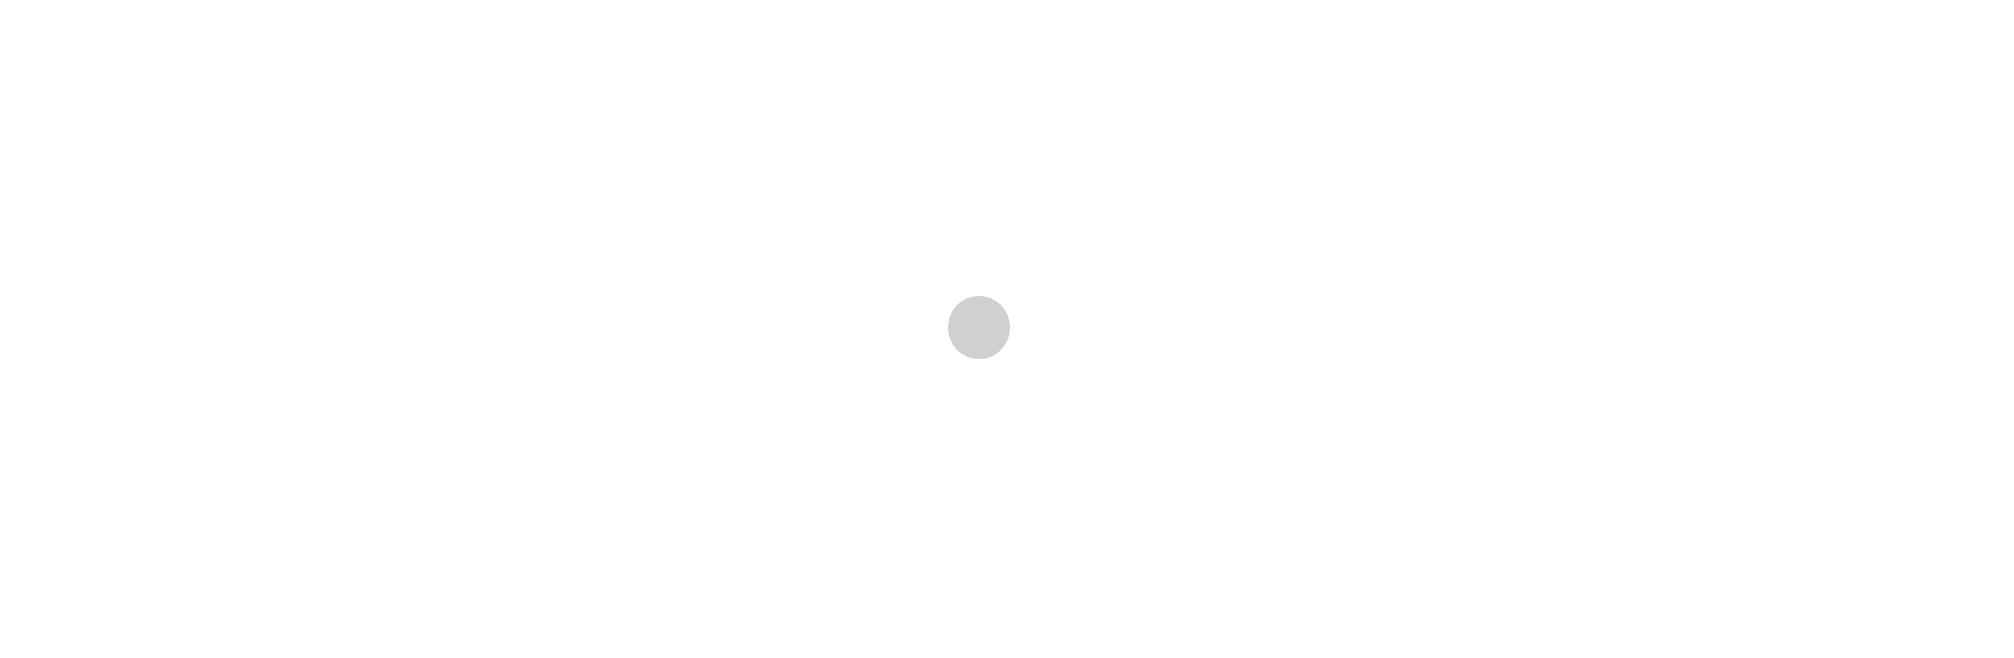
<svg xmlns="http://www.w3.org/2000/svg" xmlns:xlink="http://www.w3.org/1999/xlink" width="2014" height="658" viewBox="0 0 2014 658">
<rect width="100%" height="100%" fill="#ffffff"/>
<rect fill="#d0d0d0" x="948" y="296" width="62" height="63" rx="31"/>
</svg>
